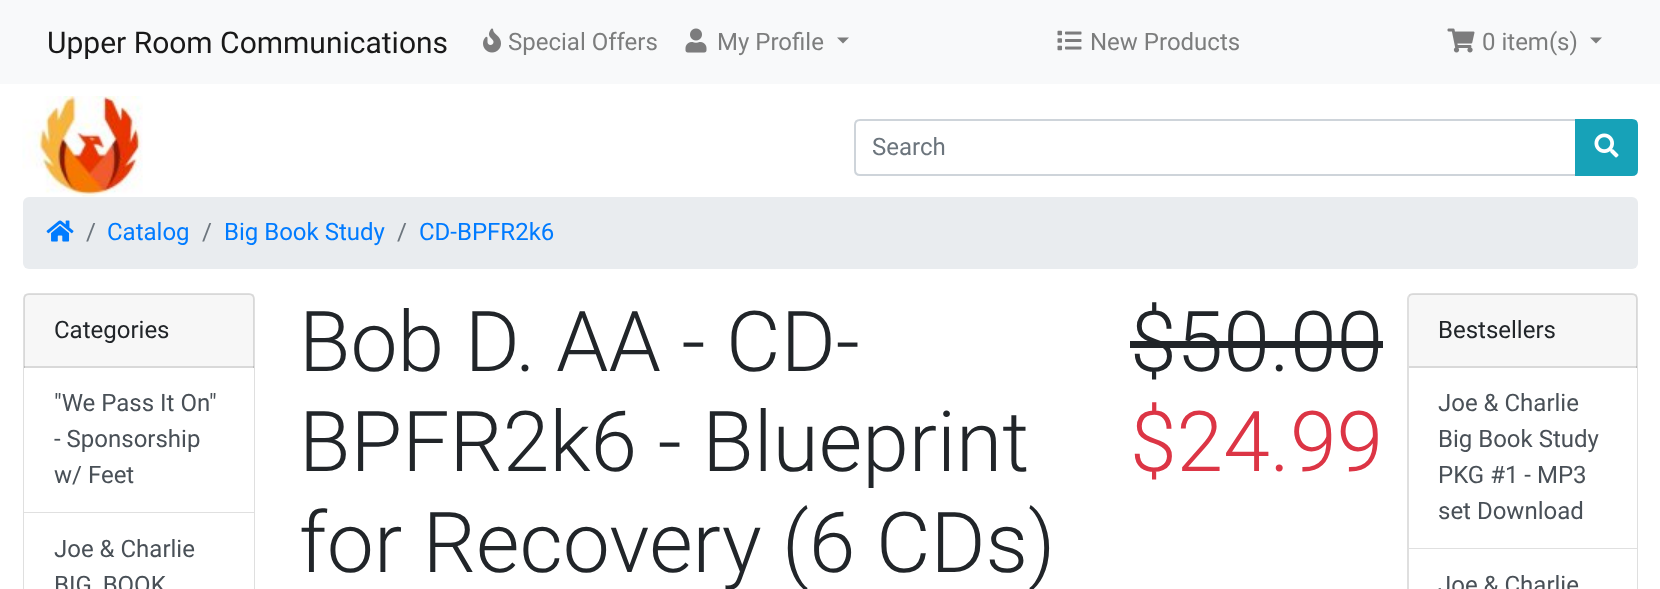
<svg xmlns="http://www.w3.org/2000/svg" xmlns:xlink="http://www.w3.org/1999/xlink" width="1660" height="589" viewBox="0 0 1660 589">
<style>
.cls-1{font:30px Roboto;fill:#191919}
.cls-2{font:24px Roboto;fill:#7c7d7d}
.cls-3{font:24px Roboto;fill:#6c757d}
.cls-4{font:24px Roboto;fill:#007bff}
.cls-5{font:24px Roboto;fill:#212529}
.cls-6{font:24px Roboto;fill:#495057}
.cls-7{font:300 84px Roboto;fill:#212529}
.cls-8{font:300 84px Roboto;fill:#dc3545}
</style>
<rect width="100%" height="100%" fill="#ffffff"/>
<rect fill="#f8f9fa" x="0" y="0" width="1660" height="84"/>
<image xlink:href="image0.png" x="483" y="28" width="18" height="25"/>
<image xlink:href="image1.png" x="685" y="28" width="22" height="25"/>
<path fill="#7c7d7d" d="M837 37.5H849L843 43.5Z"/>
<image xlink:href="image2.png" x="1057" y="30" width="25" height="21"/>
<image xlink:href="image3.png" x="1447" y="28" width="28" height="25"/>
<path fill="#7c7d7d" d="M1590 37.5H1602L1596 43.5Z"/>
<image xlink:href="image4.png" x="22" y="96" width="121" height="101"/>
<path fill="none" stroke="#ced4da" stroke-width="2" d="M860 120H1576V175H860C857 175 855 173 855 170V125C855 122 857 120 860 120Z"/>
<path fill="#17a2b8" stroke="#17a2b8" stroke-width="2" d="M1576 120H1632C1635 120 1637 122 1637 125V170C1637 173 1635 175 1632 175H1576Z"/>
<image xlink:href="image5.png" x="1594" y="133" width="25" height="25"/>
<rect fill="#e9ecef" x="23" y="197" width="1615" height="72" rx="6"/>
<image xlink:href="image6.png" x="46" y="220" width="28" height="22"/>
<rect fill="none" stroke="#dfdfdf" stroke-width="2" x="24" y="294" width="230" height="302" rx="5"/>
<rect fill="#000000" fill-opacity="0.03" x="24" y="294" width="230" height="74"/>
<rect fill="#000000" fill-opacity="0.12" x="24" y="366" width="230" height="2"/>
<rect fill="#ffffff" x="24" y="368" width="230" height="221"/>
<rect fill="#000000" fill-opacity="0.12" x="24" y="512" width="230" height="1"/>
<rect fill="#212529" x="1130" y="341" width="253" height="7"/>
<rect fill="none" stroke="#dfdfdf" stroke-width="2" x="1408" y="294" width="229" height="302" rx="5"/>
<rect fill="#000000" fill-opacity="0.03" x="1409" y="294" width="228" height="74"/>
<rect fill="#000000" fill-opacity="0.12" x="1409" y="366" width="228" height="2"/>
<rect fill="#ffffff" x="1636" y="368" width="1" height="221"/>
<rect fill="#000000" fill-opacity="0.12" x="1409" y="548" width="228" height="1"/>
<text class="cls-1" x="47" y="53">Upper Room Communications</text>
<text class="cls-2" x="508" y="50">Special Offers</text>
<text class="cls-2" x="717" y="50">My Profile</text>
<text class="cls-2" x="1090" y="50">New Products</text>
<text class="cls-2" x="1482" y="50">0 item(s)</text>
<text class="cls-3" x="872" y="155">Search</text>
<text class="cls-3" x="86" y="240">/</text>
<text class="cls-4" x="107" y="240">Catalog</text>
<text class="cls-3" x="202" y="240">/</text>
<text class="cls-4" x="224" y="240">Big Book Study</text>
<text class="cls-3" x="397" y="240">/</text>
<text class="cls-4" x="419" y="240">CD-BPFR2k6</text>
<text class="cls-5" x="54" y="338">Categories</text>
<text class="cls-6"><tspan x="54" y="411">"We Pass It On"</tspan><tspan x="54" y="447">- Sponsorship</tspan><tspan x="54" y="483">w/ Feet</tspan></text>
<text class="cls-6"><tspan x="54" y="557">Joe &amp; Charlie</tspan><tspan x="54" y="593">BIG_BOOK</tspan></text>
<text class="cls-7"><tspan x="299" y="371">Bob D. AA - CD-</tspan><tspan x="299" y="471">BPFR2k6 - Blueprint</tspan><tspan x="299" y="572">for Recovery (6 CDs)</tspan></text>
<text class="cls-7" x="1130" y="371">$50.00</text>
<text class="cls-8" x="1130" y="471">$24.99</text>
<text class="cls-5" x="1438" y="338">Bestsellers</text>
<text class="cls-6"><tspan x="1438" y="411">Joe &amp; Charlie</tspan><tspan x="1438" y="447">Big Book Study</tspan><tspan x="1438" y="483">PKG #1 - MP3</tspan><tspan x="1438" y="519">set Download</tspan></text>
<text class="cls-6" x="1438" y="593">Joe &amp; Charlie</text>
</svg>
